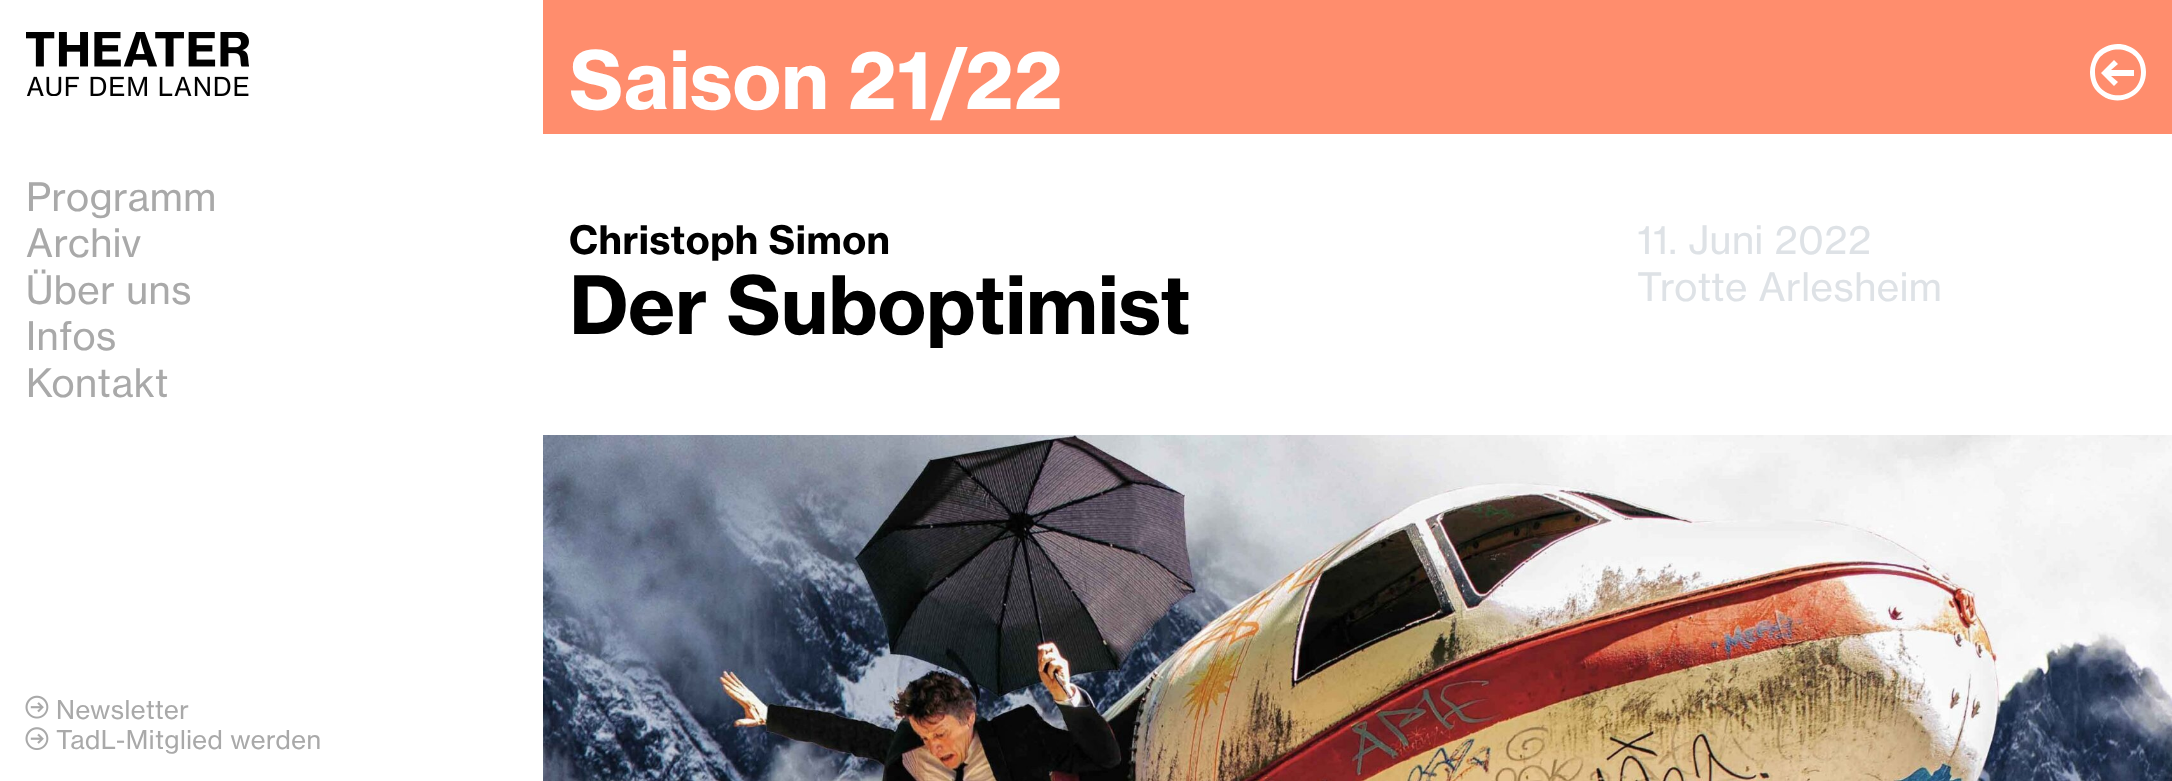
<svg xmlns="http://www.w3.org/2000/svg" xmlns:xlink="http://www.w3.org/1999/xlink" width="2172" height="781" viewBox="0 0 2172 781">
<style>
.cls-1{font:38.75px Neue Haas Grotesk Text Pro;letter-spacing:0.5px;fill:#a9a9a9}
.cls-2{font:25.5px Neue Haas Grotesk Text Pro;letter-spacing:0.5px;fill:#a9a9a9}
.cls-3{font:bold 79px Neue Haas Grotesk Text Pro;fill:#ffffff}
.cls-4{font:bold 38.75px Neue Haas Grotesk Text Pro;letter-spacing:0.5px;fill:#000000}
.cls-5{font:bold 79px Neue Haas Grotesk Text Pro;fill:#000000}
.cls-6{font:38.75px Neue Haas Grotesk Text Pro;letter-spacing:0.5px;fill:#dee2e6}
</style>
<rect width="100%" height="100%" fill="#ffffff"/>
<image xlink:href="image0.png" x="26" y="32" width="223" height="64"/>
<image xlink:href="image1.png" x="25" y="695" width="24" height="24"/>
<image xlink:href="image2.png" x="25" y="727" width="24" height="23"/>
<rect fill="#ff8d6d" x="543" y="0" width="1629" height="134"/>
<path fill="#ffffff" d="M2090 72C2090 66 2092 60 2095 55C2112 34 2146 45 2146 72C2146 99 2112 111 2095 89C2092 85 2090 78 2090 72ZM2095 72C2095 103 2141 103 2141 72C2141 42 2095 42 2095 72ZM2118 64L2111 70H2134V76H2111L2118 82L2114 86L2101 73L2114 60Z"/>
<image xlink:href="image3.png" x="543" y="435" width="1629" height="346"/>
<text class="cls-1"><tspan x="26" y="211">Programm</tspan><tspan x="26" y="257">Archiv</tspan><tspan x="26" y="304">Über uns</tspan><tspan x="26" y="350">Infos</tspan><tspan x="26" y="397">Kontakt</tspan></text>
<text class="cls-2"><tspan x="56" y="719">Newsletter</tspan><tspan x="56" y="749">TadL-Mitglied werden</tspan></text>
<text class="cls-3" x="569" y="109">Saison 21/22</text>
<text class="cls-4" x="569" y="254">Christoph Simon</text>
<text class="cls-5" x="569" y="334">Der Suboptimist</text>
<text class="cls-6"><tspan x="1637" y="254">11. Juni 2022</tspan><tspan x="1637" y="301">Trotte Arlesheim</tspan></text>
</svg>
